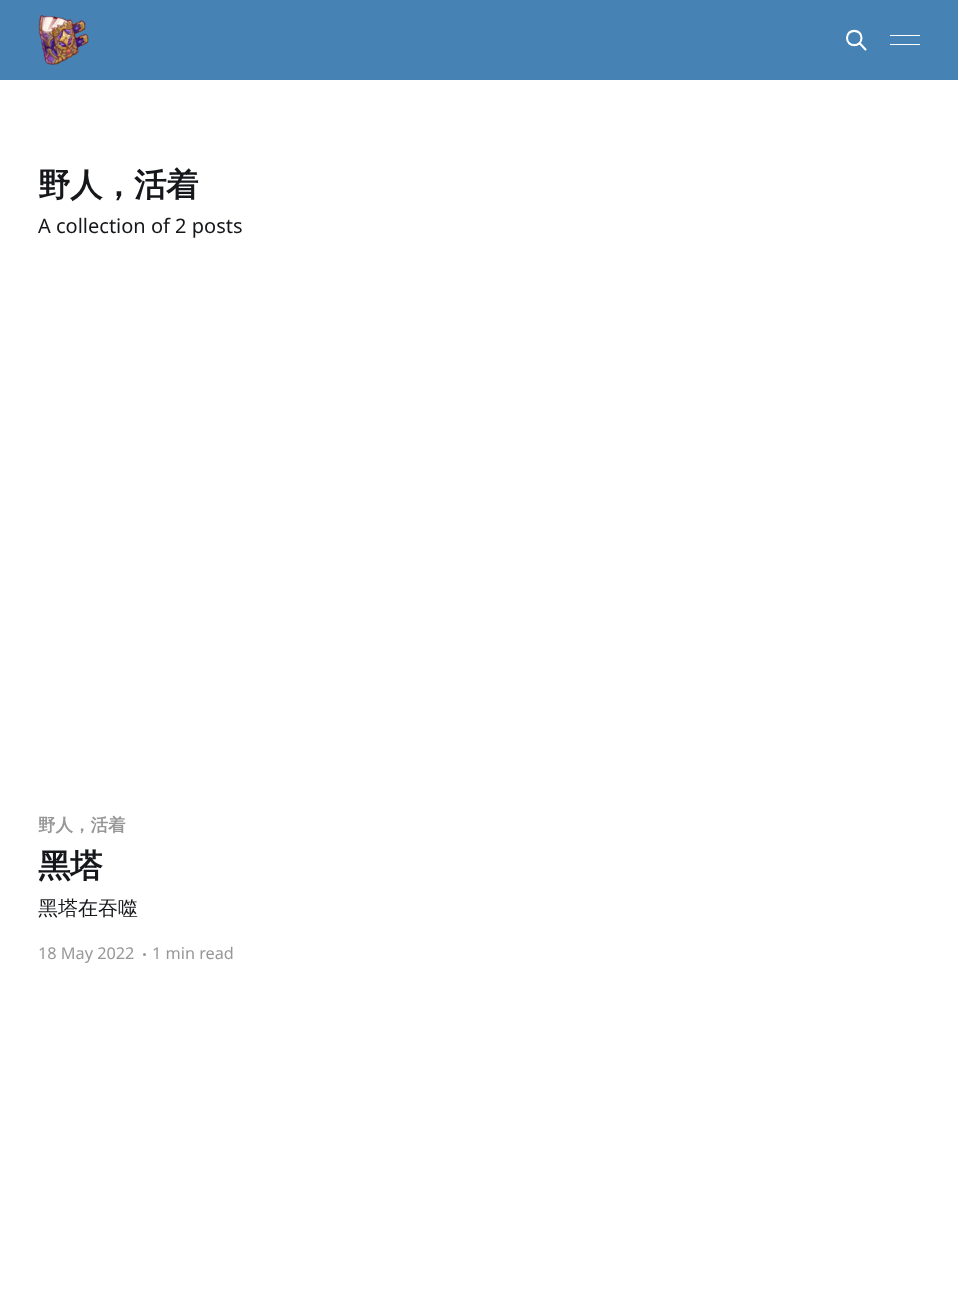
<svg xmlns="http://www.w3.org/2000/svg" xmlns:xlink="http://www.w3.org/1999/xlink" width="958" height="1308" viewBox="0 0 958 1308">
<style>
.cls-1{font:bold 32.5px WenQuanYi Zen Hei;letter-spacing:-0.5px;fill:#15171a}
.cls-2{font:20px Noto Sans;fill:#15171a}
.cls-3{font:bold 17.5px WenQuanYi Zen Hei;fill:#979797}
.cls-4{font:500 20px WenQuanYi Zen Hei;fill:#15171a}
.cls-5{font:16.25px Noto Sans;fill:#979797}
</style>
<rect width="100%" height="100%" fill="#ffffff"/>
<rect fill="#4682b4" x="0" y="0" width="958" height="80"/>
<image xlink:href="image0.png" x="38" y="15" width="51" height="50"/>
<path fill="none" stroke="#ffffff" stroke-width="2.1" stroke-linecap="round" stroke-linejoin="round" d="M865.5 49.5L859.5 43M861.5 38C861.5 47.5 847 47.5 847 38C847 28.5 861.5 28.5 861.5 38Z"/>
<rect fill="#ffffff" x="890" y="35" width="30" height="1"/>
<rect fill="#ffffff" x="890" y="44" width="30" height="1"/>
<circle fill="#979797" cx="144.5" cy="954.5" r="1.5"/>
<text class="cls-1" x="38" y="196">野人，活着</text>
<text class="cls-2" x="38" y="233">A collection of 2 posts</text>
<text class="cls-3" x="38" y="831">野人，活着</text>
<text class="cls-1" x="38" y="877">黑塔</text>
<text class="cls-4" x="38" y="915">黑塔在吞噬</text>
<text class="cls-5" x="38" y="959">18 May 2022</text>
<text class="cls-5" x="152" y="959">1 min read</text>
</svg>
